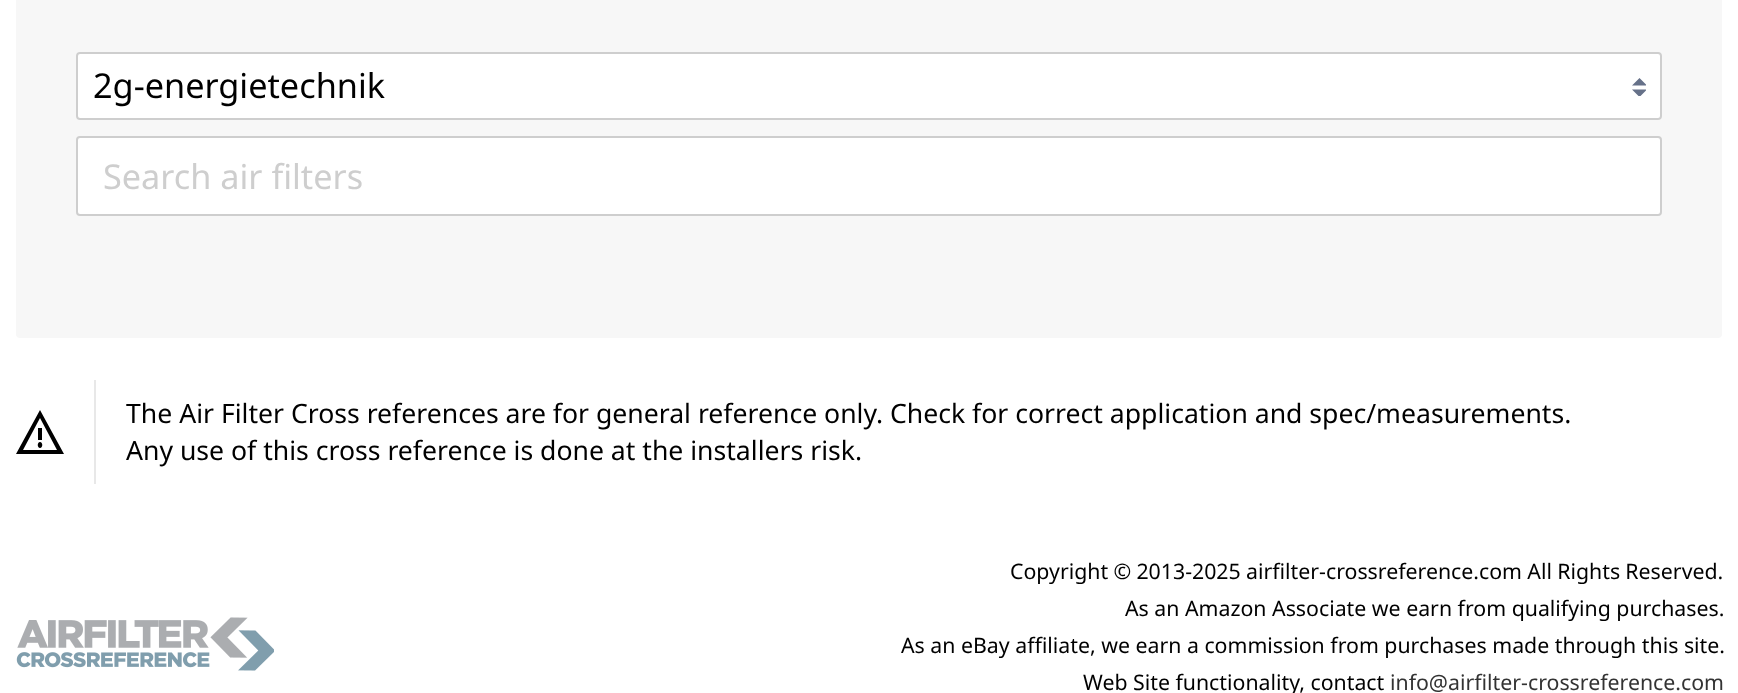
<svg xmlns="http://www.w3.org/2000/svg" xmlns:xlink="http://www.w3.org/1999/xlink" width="1738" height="693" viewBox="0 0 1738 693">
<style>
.cls-1{font:34.25px Noto Sans;fill:#000000}
.cls-2{font:34.25px Noto Sans;fill:#cecece}
.cls-3{font:26.6px Noto Sans;fill:#000000}
.cls-4{font:21.3px Noto Sans;fill:#000000}
.cls-5{font:21.3px Noto Sans;fill:#333333}
</style>
<defs>
<clipPath id="clip1"><rect x="1632" y="78" width="14" height="18"/></clipPath>
</defs>
<rect width="100%" height="100%" fill="#ffffff"/>
<rect fill="#f7f7f7" x="16" y="-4" width="1706" height="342" rx="4"/>
<rect fill="#ffffff" x="76" y="52" width="1586" height="68" rx="4"/>
<g clip-path="url(#clip1)">
<path fill="#667189" d="M1639.5 78L1632 85.5H1647ZM1639.5 97L1632 89.5H1647Z"/>
</g>
<rect fill="none" stroke="#cecece" stroke-width="2" x="77" y="53" width="1584" height="66" rx="3"/>
<rect fill="#ffffff" stroke="#cecece" stroke-width="2" x="77" y="137" width="1584" height="78" rx="3"/>
<path fill="#000000" d="M40 418L57 450H23ZM40 410L16 454H64ZM38 428H42V440H38ZM40 448C37 448 37 442 40 442C43 442 43 448 40 448Z"/>
<rect fill="#e8e8e8" x="94" y="380" width="2" height="104"/>
<image xlink:href="image0.png" x="16" y="617" width="258" height="54"/>
<text class="cls-1" x="93" y="98">2g-energietechnik</text>
<text class="cls-2" x="103" y="189">Search air filters</text>
<text class="cls-3"><tspan x="126" y="423">The Air Filter Cross references are for general reference only. Check for correct application and spec/measurements.</tspan><tspan x="126" y="460">Any use of this cross reference is done at the installers risk.</tspan></text>
<text class="cls-4" x="1010" y="579" word-spacing="-0.25">Copyright © 2013-2025 airfilter-crossreference.com All Rights Reserved.</text>
<text class="cls-4" x="1125" y="616">As an Amazon Associate we earn from qualifying purchases.</text>
<text class="cls-4" x="901" y="653">As an eBay affiliate, we earn a commission from purchases made through this site.</text>
<text class="cls-4" x="1083" y="690">Web Site functionality, contact</text>
<text class="cls-5" x="1390" y="690">info@airfilter-crossreference.com</text>
</svg>
